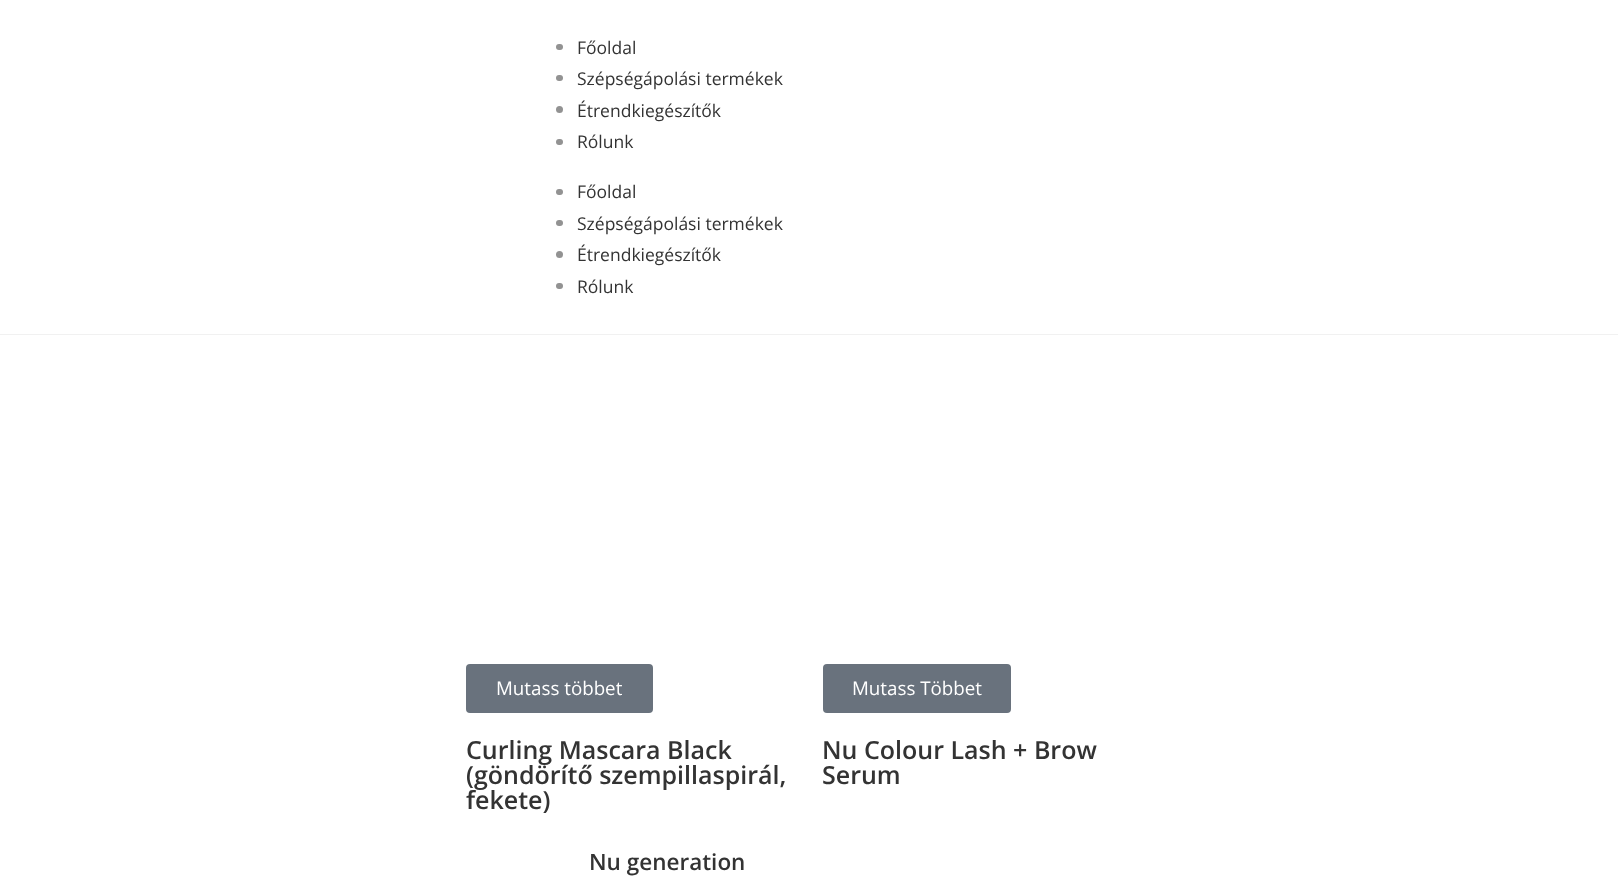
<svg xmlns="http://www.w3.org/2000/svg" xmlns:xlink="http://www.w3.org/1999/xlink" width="1618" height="893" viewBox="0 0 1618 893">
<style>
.cls-1{font:17.5px Open Sans;fill:#333333}
.cls-2{font:18.75px Open Sans;fill:#ffffff}
.cls-3{font:600 25px Open Sans;fill:#333333}
.cls-4{font:600 22.5px Open Sans;fill:#333333}
</style>
<rect width="100%" height="100%" fill="#ffffff"/>
<rect fill="#f1f1f1" x="0" y="334" width="1618" height="1"/>
<rect fill="#929292" x="556" y="44" width="7" height="6" rx="3"/>
<rect fill="#929292" x="556" y="75" width="7" height="6" rx="3"/>
<circle fill="#929292" cx="559.5" cy="109.5" r="3.5"/>
<rect fill="#929292" x="556" y="139" width="7" height="6" rx="3"/>
<rect fill="#929292" x="556" y="189" width="7" height="6" rx="3"/>
<rect fill="#929292" x="556" y="220" width="7" height="6" rx="3"/>
<circle fill="#929292" cx="559.5" cy="254.5" r="3.5"/>
<rect fill="#929292" x="556" y="283" width="7" height="6" rx="3"/>
<rect fill="#69727d" x="466" y="664" width="187" height="49" rx="4"/>
<rect fill="#69727d" x="823" y="664" width="188" height="49" rx="4"/>
<text class="cls-1"><tspan x="577" y="54">Főoldal</tspan><tspan x="577" y="85">Szépségápolási termékek</tspan><tspan x="577" y="117">Étrendkiegészítők</tspan><tspan x="577" y="148">Rólunk</tspan></text>
<text class="cls-1"><tspan x="577" y="198">Főoldal</tspan><tspan x="577" y="230">Szépségápolási termékek</tspan><tspan x="577" y="261">Étrendkiegészítők</tspan><tspan x="577" y="293">Rólunk</tspan></text>
<text class="cls-2" x="496" y="695">Mutass többet</text>
<text class="cls-3"><tspan x="466" y="759">Curling Mascara Black</tspan><tspan x="466" y="784">(göndörítő szempillaspirál,</tspan><tspan x="466" y="809">fekete)</tspan></text>
<text class="cls-2" x="852" y="695">Mutass Többet</text>
<text class="cls-3"><tspan x="822" y="759">Nu Colour Lash + Brow</tspan><tspan x="822" y="784">Serum</tspan></text>
<text class="cls-4" x="589" y="870">Nu generation</text>
</svg>
